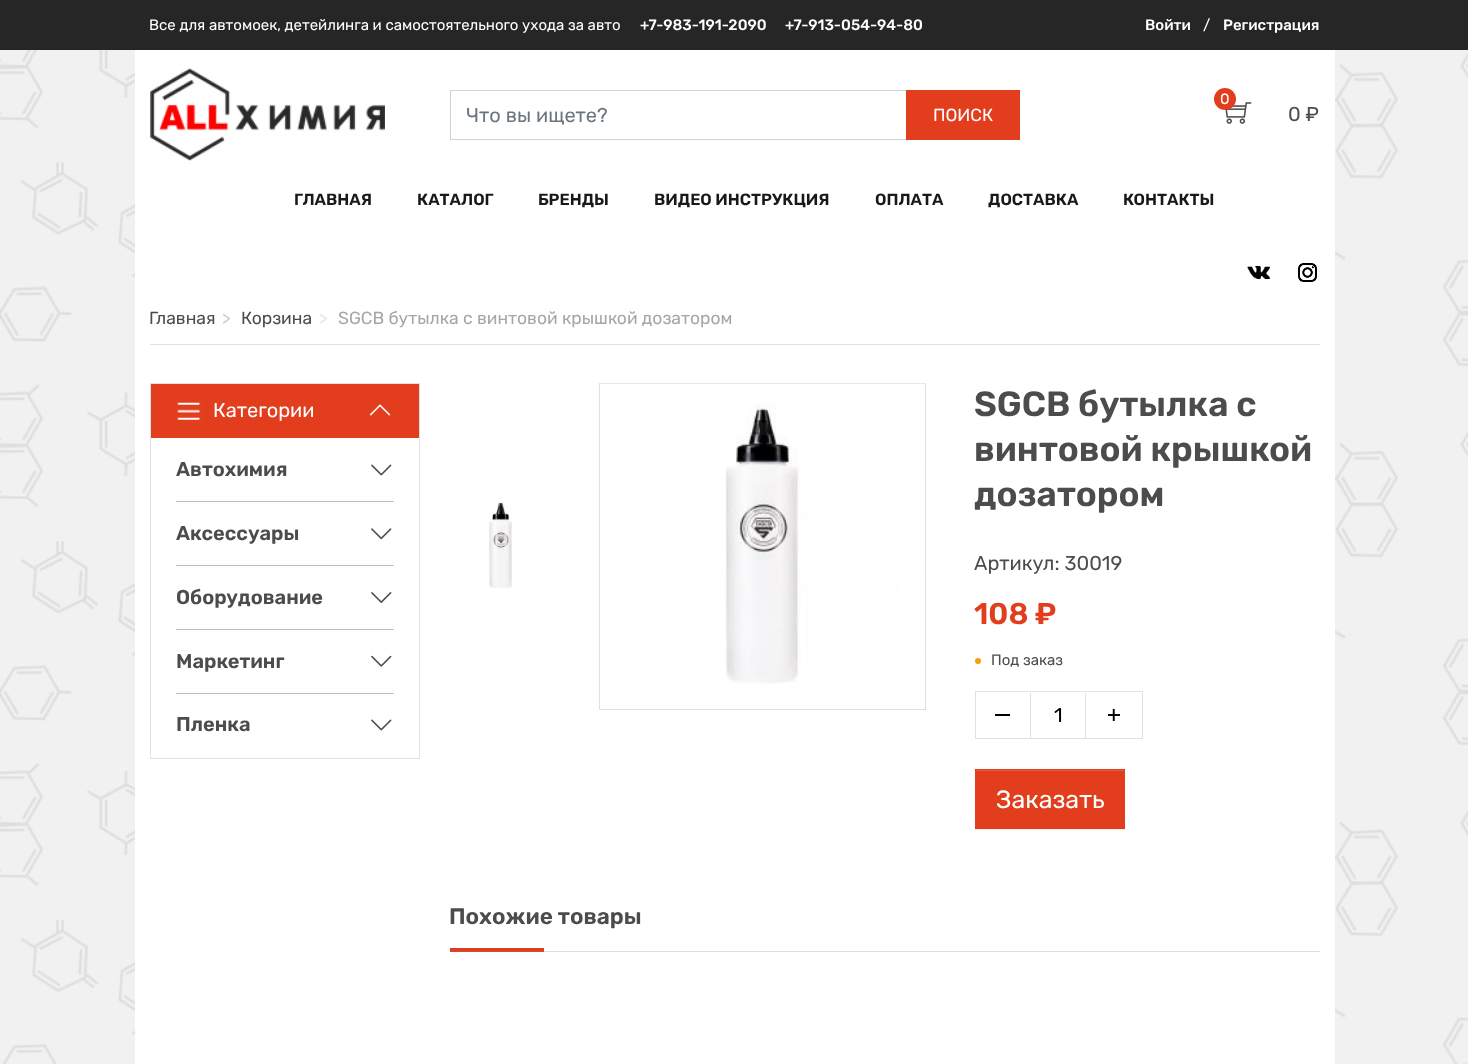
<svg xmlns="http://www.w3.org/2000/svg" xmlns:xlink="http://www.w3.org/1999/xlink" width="1468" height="1064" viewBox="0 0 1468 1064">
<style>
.cls-1{font:15px Rubik;fill:#ffffff}
.cls-2{font:500 15px Rubik;fill:#ffffff}
.cls-3{font:20px Rubik;fill:#6c757d}
.cls-4{font:17.5px Rubik;fill:#ffffff}
.cls-5{font:20px Rubik;fill:#4c4c4c}
.cls-6{font:600 16.25px Rubik;fill:#191919}
.cls-7{font:17.5px Rubik;fill:#4c4c4c}
.cls-8{font:17.5px Rubik;fill:#cccccc}
.cls-9{font:17.5px Rubik;fill:#e6e6e6}
.cls-10{font:17.5px Rubik;fill:#a6a6a6}
.cls-11{font:20px Rubik;fill:#ffffff}
.cls-12{font:600 20px Rubik;fill:#4c4c4c}
.cls-13{font:600 35px Rubik;fill:#4c4c4c}
.cls-14{font:600 30px Rubik;fill:#e23e1d}
.cls-15{font:15px Rubik;fill:#4c4c4c}
.cls-16{font:20px Rubik;fill:#000000}
.cls-17{font:25px Rubik;fill:#ffffff}
.cls-18{font:600 22.5px Rubik;fill:#4c4c4c}
</style>
<rect width="100%" height="100%" fill="#ffffff"/>
<image xlink:href="image0.png" x="0" y="50" width="1468" height="1014"/>
<rect fill="#262626" x="0" y="0" width="1468" height="50"/>
<rect fill="#ffffff" x="135" y="50" width="1200" height="1014"/>
<image xlink:href="image1.png" x="150" y="68" width="235" height="93"/>
<rect fill="none" stroke="#ced4da" x="450.5" y="90.5" width="457" height="49"/>
<rect fill="#e23e1d" x="906" y="90" width="114" height="50"/>
<image xlink:href="image2.png" x="1225" y="102" width="27" height="22"/>
<circle fill="#e23e1d" cx="1225" cy="99" r="11"/>
<image xlink:href="image3.png" x="1247" y="265" width="23" height="15"/>
<image xlink:href="image4.png" x="1298" y="263" width="19" height="19"/>
<rect fill="#e1e1e1" x="150" y="344" width="1170" height="1"/>
<rect fill="none" stroke="#dee2e6" x="150.5" y="383.5" width="269" height="375"/>
<rect fill="#e23e1d" x="151" y="384" width="268" height="54"/>
<image xlink:href="image5.png" x="177" y="402" width="24" height="18"/>
<image xlink:href="image6.png" x="369" y="404" width="22" height="12"/>
<rect fill="#bfbfbf" x="176" y="501" width="218" height="1"/>
<image xlink:href="image7.png" x="371" y="464" width="21" height="12"/>
<rect fill="#bfbfbf" x="176" y="565" width="218" height="1"/>
<image xlink:href="image8.png" x="371" y="528" width="21" height="12"/>
<rect fill="#bfbfbf" x="176" y="629" width="218" height="1"/>
<image xlink:href="image9.png" x="371" y="592" width="21" height="11"/>
<rect fill="#bfbfbf" x="176" y="693" width="218" height="1"/>
<image xlink:href="image10.png" x="371" y="655" width="21" height="12"/>
<image xlink:href="image7.png" x="371" y="719" width="21" height="12"/>
<image xlink:href="image11.png" x="489" y="502" width="23" height="86"/>
<rect fill="none" stroke="#e0e0e0" x="599.5" y="383.5" width="326" height="326"/>
<image xlink:href="image12.png" x="600" y="383" width="325" height="301"/>
<circle fill="#fb9a0b" cx="978" cy="661" r="3"/>
<rect fill="none" stroke="#e1e1e1" x="975.5" y="691.5" width="167" height="47"/>
<rect fill="#000000" x="995" y="714" width="15" height="2"/>
<rect fill="#e1e1e1" x="1085" y="693" width="1" height="45"/>
<rect fill="#e1e1e1" x="1030" y="693" width="1" height="45"/>
<image xlink:href="image13.png" x="1108" y="709" width="12" height="12"/>
<rect fill="#000000" fill-opacity="0.07" filter="blur(0.5px)" x="975" y="770" width="150" height="60"/>
<rect fill="#e23e1d" x="975" y="769" width="150" height="60"/>
<rect fill="#e65b3f" x="976" y="770" width="148" height="1"/>
<rect fill="#e23e1d" x="450" y="948" width="94" height="4"/>
<rect fill="#858585" fill-opacity="0.25" x="450" y="951" width="870" height="1"/>
<text class="cls-1" x="149" y="30">Все для автомоек, детейлинга и самостоятельного ухода за авто</text>
<text class="cls-2" x="640" y="30">+7-983-191-2090</text>
<text class="cls-2" x="785" y="30">+7-913-054-94-80</text>
<text class="cls-2" x="1145" y="30">Войти</text>
<text class="cls-1" x="1203" y="30">/</text>
<text class="cls-2" x="1223" y="30">Регистрация</text>
<text class="cls-3" x="466" y="122">Что вы ищете?</text>
<text class="cls-4" x="933" y="121">ПОИСК</text>
<text class="cls-1" x="1220" y="104">0</text>
<text class="cls-5" x="1288" y="121">0 ₽</text>
<text class="cls-6" x="294" y="205">ГЛАВНАЯ</text>
<text class="cls-6" x="417" y="205">КАТАЛОГ</text>
<text class="cls-6" x="538" y="205">БРЕНДЫ</text>
<text class="cls-6" x="654" y="205">ВИДЕО ИНСТРУКЦИЯ</text>
<text class="cls-6" x="875" y="205">ОПЛАТА</text>
<text class="cls-6" x="988" y="205">ДОСТАВКА</text>
<text class="cls-6" x="1123" y="205">КОНТАКТЫ</text>
<text class="cls-7" x="149" y="324">Главная</text>
<text class="cls-8" x="222" y="324">&gt;</text>
<text class="cls-7" x="241" y="324">Корзина</text>
<text class="cls-9" x="319" y="324">&gt;</text>
<text class="cls-10" x="338" y="324">SGCB бутылка с винтовой крышкой дозатором</text>
<text class="cls-11" x="213" y="417">Категории</text>
<text class="cls-12" x="176" y="476">Автохимия</text>
<text class="cls-12" x="176" y="540">Аксессуары</text>
<text class="cls-12" x="176" y="604">Оборудование</text>
<text class="cls-12" x="176" y="668">Маркетинг</text>
<text class="cls-12" x="176" y="731">Пленка</text>
<text class="cls-13"><tspan x="974" y="416">SGCB бутылка с</tspan><tspan x="974" y="461">винтовой крышкой</tspan><tspan x="974" y="506">дозатором</tspan></text>
<text class="cls-5" x="974" y="570">Артикул: 30019</text>
<text class="cls-14" x="974" y="624">108 ₽</text>
<text class="cls-15" x="991" y="665">Под заказ</text>
<text class="cls-16" x="1054" y="722">1</text>
<text class="cls-17" x="996" y="808">Заказать</text>
<text class="cls-18" x="449" y="924">Похожие товары</text>
</svg>
